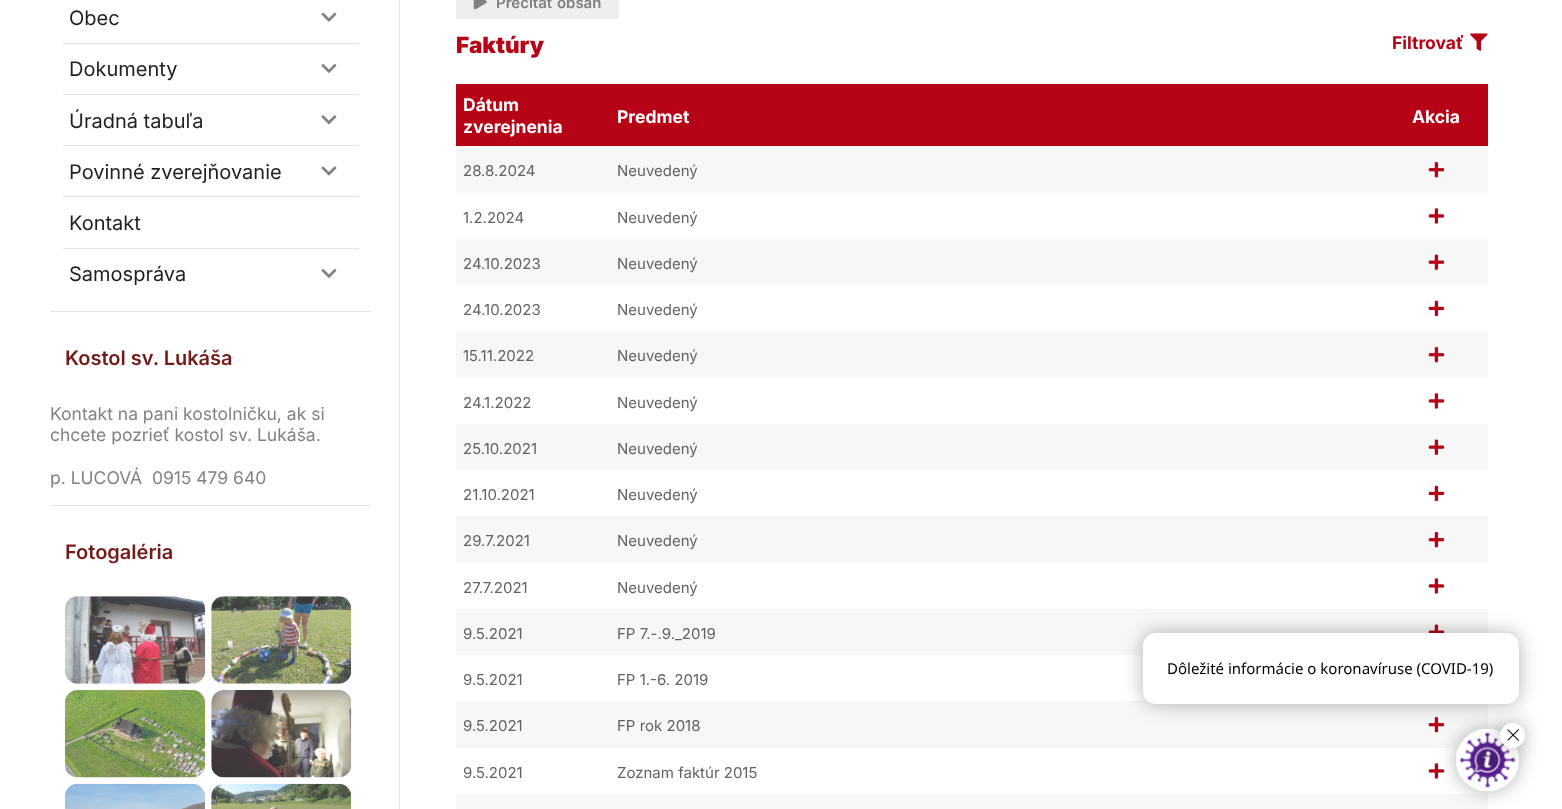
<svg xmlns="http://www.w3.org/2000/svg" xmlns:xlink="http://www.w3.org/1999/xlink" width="1562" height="809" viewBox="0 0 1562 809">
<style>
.cls-1{font:20px Inter;fill:#1f1f1f}
.cls-2{font:600 20px Inter;fill:#731b19}
.cls-3{font:17.5px Inter;fill:#818181}
.cls-4{font:600 15px Inter;fill:#818181}
.cls-5{font:900 22.5px Inter;fill:#b70316}
.cls-6{font:bold 17.5px Inter;fill:#b70316}
.cls-7{font:bold 17.5px Inter;fill:#ffffff}
.cls-8{font:15px Inter;fill:#626262}
.cls-9{font:15px Noto Sans;fill:#000000}
</style>
<defs>
<clipPath id="clip1"><path d="M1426 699H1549V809H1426ZM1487 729H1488C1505 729 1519 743 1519 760C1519 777 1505 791 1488 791H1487C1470 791 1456 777 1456 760C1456 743 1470 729 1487 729Z" clip-rule="evenodd"/></clipPath>
</defs>
<rect width="100%" height="100%" fill="#ffffff"/>
<rect fill="#e5e5e5" x="399" y="0" width="1" height="809"/>
<rect fill="#e5e5e5" x="50" y="311" width="321" height="1"/>
<rect fill="#e5e5e5" x="63" y="43" width="296" height="1"/>
<image xlink:href="image0.png" x="321" y="12" width="16" height="10"/>
<rect fill="#e5e5e5" x="63" y="94" width="296" height="1"/>
<image xlink:href="image1.png" x="321" y="64" width="16" height="9"/>
<rect fill="#e5e5e5" x="63" y="145" width="296" height="1"/>
<image xlink:href="image2.png" x="321" y="115" width="16" height="10"/>
<rect fill="#e5e5e5" x="63" y="196" width="296" height="1"/>
<image xlink:href="image3.png" x="321" y="166" width="16" height="10"/>
<rect fill="#e5e5e5" x="63" y="248" width="296" height="1"/>
<image xlink:href="image1.png" x="321" y="269" width="16" height="9"/>
<rect fill="#e5e5e5" x="50" y="505" width="321" height="1"/>
<image xlink:href="image4.png" x="65" y="596" width="140" height="88"/>
<image xlink:href="image5.png" x="211" y="596" width="141" height="88"/>
<image xlink:href="image6.png" x="65" y="690" width="140" height="88"/>
<image xlink:href="image7.png" x="211" y="690" width="141" height="88"/>
<image xlink:href="image8.png" x="65" y="783" width="140" height="26"/>
<image xlink:href="image9.png" x="211" y="783" width="141" height="26"/>
<rect fill="#eeeeee" x="456" y="0" width="163" height="19"/>
<image xlink:href="image10.png" x="473" y="0" width="14" height="10"/>
<image xlink:href="image11.png" x="1470" y="33" width="18" height="18"/>
<rect fill="#b70316" x="456" y="84" width="1032" height="62"/>
<rect fill="#f7f7f7" x="456" y="146" width="1032" height="47"/>
<image xlink:href="image12.png" x="1428" y="162" width="17" height="16"/>
<image xlink:href="image13.png" x="1428" y="208" width="17" height="16"/>
<rect fill="#f7f7f7" x="456" y="239" width="1032" height="46"/>
<image xlink:href="image14.png" x="1428" y="254" width="17" height="16"/>
<image xlink:href="image15.png" x="1428" y="300" width="17" height="17"/>
<rect fill="#f7f7f7" x="456" y="331" width="1032" height="47"/>
<image xlink:href="image12.png" x="1428" y="347" width="17" height="16"/>
<image xlink:href="image13.png" x="1428" y="393" width="17" height="16"/>
<rect fill="#f7f7f7" x="456" y="424" width="1032" height="46"/>
<image xlink:href="image14.png" x="1428" y="439" width="17" height="16"/>
<image xlink:href="image15.png" x="1428" y="485" width="17" height="17"/>
<rect fill="#f7f7f7" x="456" y="516" width="1032" height="47"/>
<image xlink:href="image12.png" x="1428" y="532" width="17" height="16"/>
<image xlink:href="image13.png" x="1428" y="578" width="17" height="16"/>
<rect fill="#f7f7f7" x="456" y="609" width="1032" height="46"/>
<image xlink:href="image16.png" x="1428" y="624" width="17" height="9"/>
<rect fill="#f7f7f7" x="456" y="701" width="1032" height="47"/>
<image xlink:href="image12.png" x="1428" y="717" width="17" height="16"/>
<image xlink:href="image13.png" x="1428" y="763" width="17" height="16"/>
<rect fill="#f7f7f7" x="456" y="794" width="1032" height="15"/>
<g clip-path="url(#clip1)">
<rect fill="#000000" fill-opacity="0.3" filter="blur(9.5px)" x="1456" y="729" width="63" height="62" rx="31"/>
</g>
<image xlink:href="image18.png" x="1456" y="728" width="63" height="63"/>
<rect fill="#000000" fill-opacity="0.3" filter="blur(9.5px)" x="1500" y="723" width="25" height="25" rx="12.5"/>
<circle fill="#ffffff" cx="1512.5" cy="735.5" r="12.5"/>
<image xlink:href="image17.png" x="1507" y="729" width="13" height="12"/>
<rect fill="#000000" fill-opacity="0.3" filter="blur(9.5px)" x="1143" y="633" width="376" height="71" rx="13"/>
<rect fill="#ffffff" x="1143" y="633" width="376" height="71" rx="13"/>
<text class="cls-1" x="69" y="25">Obec</text>
<text class="cls-1" x="69" y="76">Dokumenty</text>
<text class="cls-1" x="69" y="128">Úradná tabuľa</text>
<text class="cls-1" x="69" y="179">Povinné zverejňovanie</text>
<text class="cls-1" x="69" y="230">Kontakt</text>
<text class="cls-1" x="69" y="281">Samospráva</text>
<text class="cls-2" x="65" y="365">Kostol sv. Lukáša</text>
<text class="cls-3"><tspan x="50" y="420">Kontakt na pani kostolničku, ak si</tspan><tspan x="50" y="441">chcete pozrieť kostol sv. Lukáša.</tspan></text>
<text class="cls-3" xml:space="preserve" x="50" y="484">p. LUCOVÁ  0915 479 640</text>
<text class="cls-2" x="65" y="559">Fotogaléria</text>
<text class="cls-4" x="496" y="8">Prečítať obsah</text>
<text class="cls-5" x="456" y="53">Faktúry</text>
<text class="cls-6" x="1392" y="49">Filtrovať</text>
<text class="cls-7"><tspan x="463" y="111">Dátum</tspan><tspan x="463" y="133">zverejnenia</tspan></text>
<text class="cls-7" x="617" y="123">Predmet</text>
<text class="cls-7" x="1412" y="123">Akcia</text>
<text class="cls-8" x="463" y="176">28.8.2024</text>
<text class="cls-8" x="617" y="176">Neuvedený</text>
<text class="cls-8" x="463" y="223">1.2.2024</text>
<text class="cls-8" x="617" y="223">Neuvedený</text>
<text class="cls-8" x="463" y="269">24.10.2023</text>
<text class="cls-8" x="617" y="269">Neuvedený</text>
<text class="cls-8" x="463" y="315">24.10.2023</text>
<text class="cls-8" x="617" y="315">Neuvedený</text>
<text class="cls-8" x="463" y="361">15.11.2022</text>
<text class="cls-8" x="617" y="361">Neuvedený</text>
<text class="cls-8" x="463" y="408">24.1.2022</text>
<text class="cls-8" x="617" y="408">Neuvedený</text>
<text class="cls-8" x="463" y="454">25.10.2021</text>
<text class="cls-8" x="617" y="454">Neuvedený</text>
<text class="cls-8" x="463" y="500">21.10.2021</text>
<text class="cls-8" x="617" y="500">Neuvedený</text>
<text class="cls-8" x="463" y="546">29.7.2021</text>
<text class="cls-8" x="617" y="546">Neuvedený</text>
<text class="cls-8" x="463" y="593">27.7.2021</text>
<text class="cls-8" x="617" y="593">Neuvedený</text>
<text class="cls-8" x="463" y="639">9.5.2021</text>
<text class="cls-8" x="617" y="639">FP 7.-.9._2019</text>
<text class="cls-8" x="463" y="685">9.5.2021</text>
<text class="cls-8" x="617" y="685">FP 1.-6. 2019</text>
<text class="cls-8" x="463" y="731">9.5.2021</text>
<text class="cls-8" x="617" y="731">FP rok 2018</text>
<text class="cls-8" x="463" y="778">9.5.2021</text>
<text class="cls-8" x="617" y="778">Zoznam faktúr 2015</text>
<text class="cls-9" x="1167" y="674">Dôležité informácie o koronavíruse (COVID-19)</text>
</svg>
